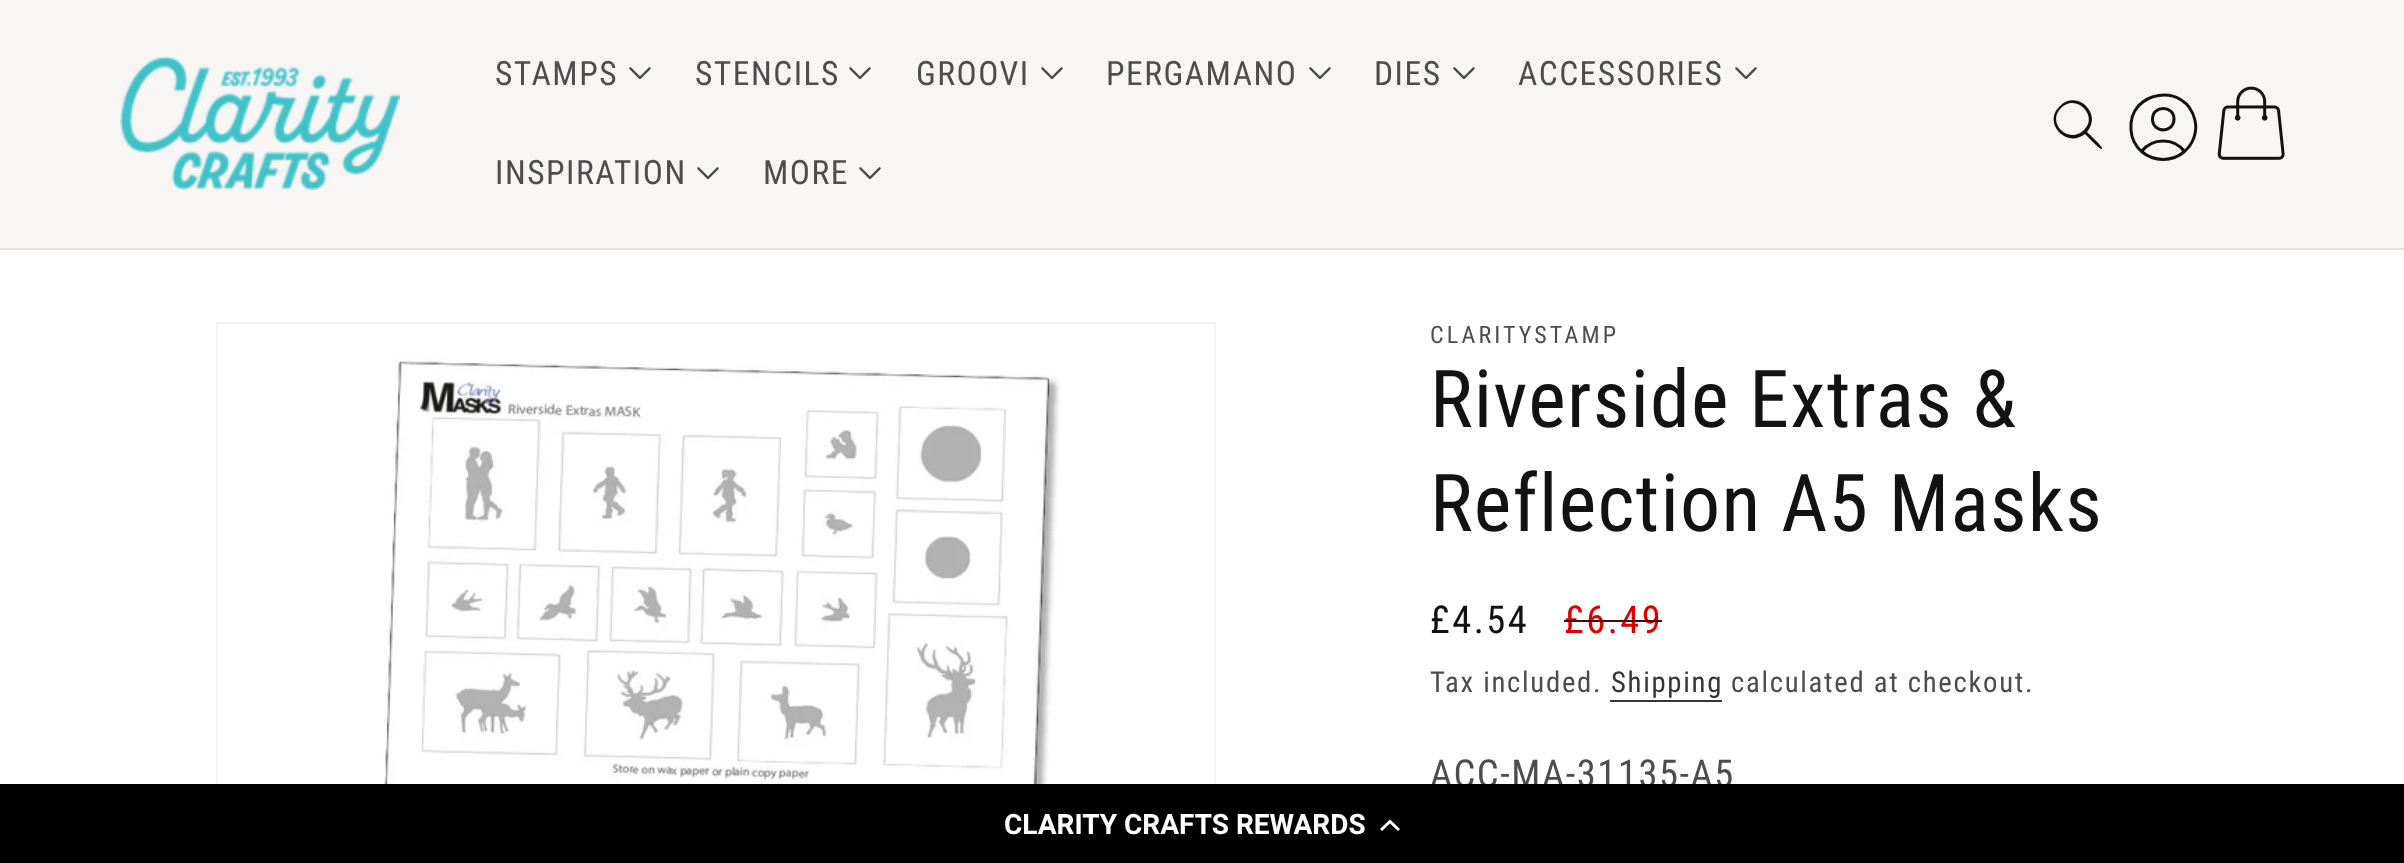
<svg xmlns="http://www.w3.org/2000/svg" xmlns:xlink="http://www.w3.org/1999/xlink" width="2404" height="863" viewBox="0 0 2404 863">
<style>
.cls-1{font:33.5px Roboto Condensed;letter-spacing:1.5px;fill:#4d4d4d}
.cls-2{font:24px Roboto Condensed;letter-spacing:3.1px;fill:#4d4d4d}
.cls-3{font:80px Roboto Condensed;letter-spacing:1.25px;fill:#121212}
.cls-4{font:38.5px Roboto Condensed;letter-spacing:2.5px;fill:#121212}
.cls-5{font:38.5px Roboto Condensed;letter-spacing:2.5px;fill:#dd0000}
.cls-6{font:28.75px Roboto Condensed;letter-spacing:1.7px;fill:#4d4d4d}
.cls-7{font:28.75px Roboto Condensed;letter-spacing:1.7px;fill:#363636}
.cls-8{font:38.5px Roboto Condensed;letter-spacing:1.5px;fill:#4d4d4d}
.cls-9{font:bold 28px Roboto;fill:#ffffff}
</style>
<rect width="100%" height="100%" fill="#ffffff"/>
<rect fill="#f8f5f5" x="0" y="0" width="2404" height="248"/>
<rect fill="#e6e3e3" x="0" y="248" width="2404" height="2"/>
<image xlink:href="image0.png" x="120" y="57" width="280" height="133"/>
<image xlink:href="image1.png" x="629" y="67" width="22" height="13"/>
<image xlink:href="image1.png" x="849" y="67" width="22" height="13"/>
<image xlink:href="image1.png" x="1041" y="67" width="22" height="13"/>
<image xlink:href="image1.png" x="1309" y="67" width="22" height="13"/>
<image xlink:href="image1.png" x="1453" y="67" width="22" height="13"/>
<image xlink:href="image1.png" x="1735" y="67" width="22" height="13"/>
<image xlink:href="image1.png" x="697" y="167" width="22" height="13"/>
<image xlink:href="image1.png" x="859" y="167" width="22" height="13"/>
<path fill="#121212" fill-rule="evenodd" d="M2084 130C2069 145 2046 123 2061 108C2076 93 2099 116 2084 130ZM2085 134C2066 149 2042 122 2060 106C2077 89 2103 114 2087 132C2089 134 2102 146 2102 148V149C2100 150 2087 136 2085 134Z"/>
<path fill="none" stroke="#121212" stroke-width="3" stroke-linecap="round" stroke-linejoin="round" d="M2184.5 151.5C2174 137.5 2152.5 137.5 2141.5 151.5M2184.5 151.5C2193.5 143.5 2197.5 131.5 2195 120.5C2186.5 81 2127.5 90 2131 130C2131.5 138.5 2135.5 146 2141.5 151.5M2184.5 151.5C2172.5 162 2154 162 2141.5 151.5M2174 119C2174 133.5 2152.5 133.5 2152.5 119C2152.5 105 2174 105 2174 119Z"/>
<image xlink:href="image2.png" x="2217" y="86" width="68" height="74"/>
<rect fill="none" stroke="#f3f3f3" stroke-width="2" x="217" y="323" width="998" height="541"/>
<image xlink:href="image3.png" x="383" y="358" width="678" height="426"/>
<rect fill="#363636" x="1610" y="700" width="112" height="2"/>
<text class="cls-1" x="495" y="85">STAMPS</text>
<text class="cls-1" x="695" y="85">STENCILS</text>
<text class="cls-1" x="916" y="85">GROOVI</text>
<text class="cls-1" x="1106" y="85">PERGAMANO</text>
<text class="cls-1" x="1374" y="85">DIES</text>
<text class="cls-1" x="1518" y="85">ACCESSORIES</text>
<text class="cls-1" x="495" y="184">INSPIRATION</text>
<text class="cls-1" x="763" y="184">MORE</text>
<text class="cls-2" x="1430" y="343">CLARITYSTAMP</text>
<text class="cls-3"><tspan x="1430" y="427">Riverside Extras &amp;</tspan><tspan x="1430" y="531">Reflection A5 Masks</tspan></text>
<text class="cls-4" x="1430" y="633">£4.54</text>
<text class="cls-5" x="1564" y="633">£6.49</text>
<rect fill="#450e0e" x="1564" y="620" width="98" height="2"/>
<text class="cls-6" x="1430" y="692">Tax included.</text>
<text class="cls-7" x="1611" y="692">Shipping</text>
<text class="cls-6" x="1731" y="692">calculated at checkout.</text>
<text class="cls-8" x="1430" y="787">ACC-MA-31135-A5</text>
<rect fill="#000000" x="0" y="784" width="2404" height="79"/>
<text class="cls-9" x="1004" y="834">CLARITY CRAFTS REWARDS</text>
<path fill="#ffffff" d="M1390 823.5L1382 831L1380 829L1390 819.5L1400 829L1398 831Z"/>
</svg>
